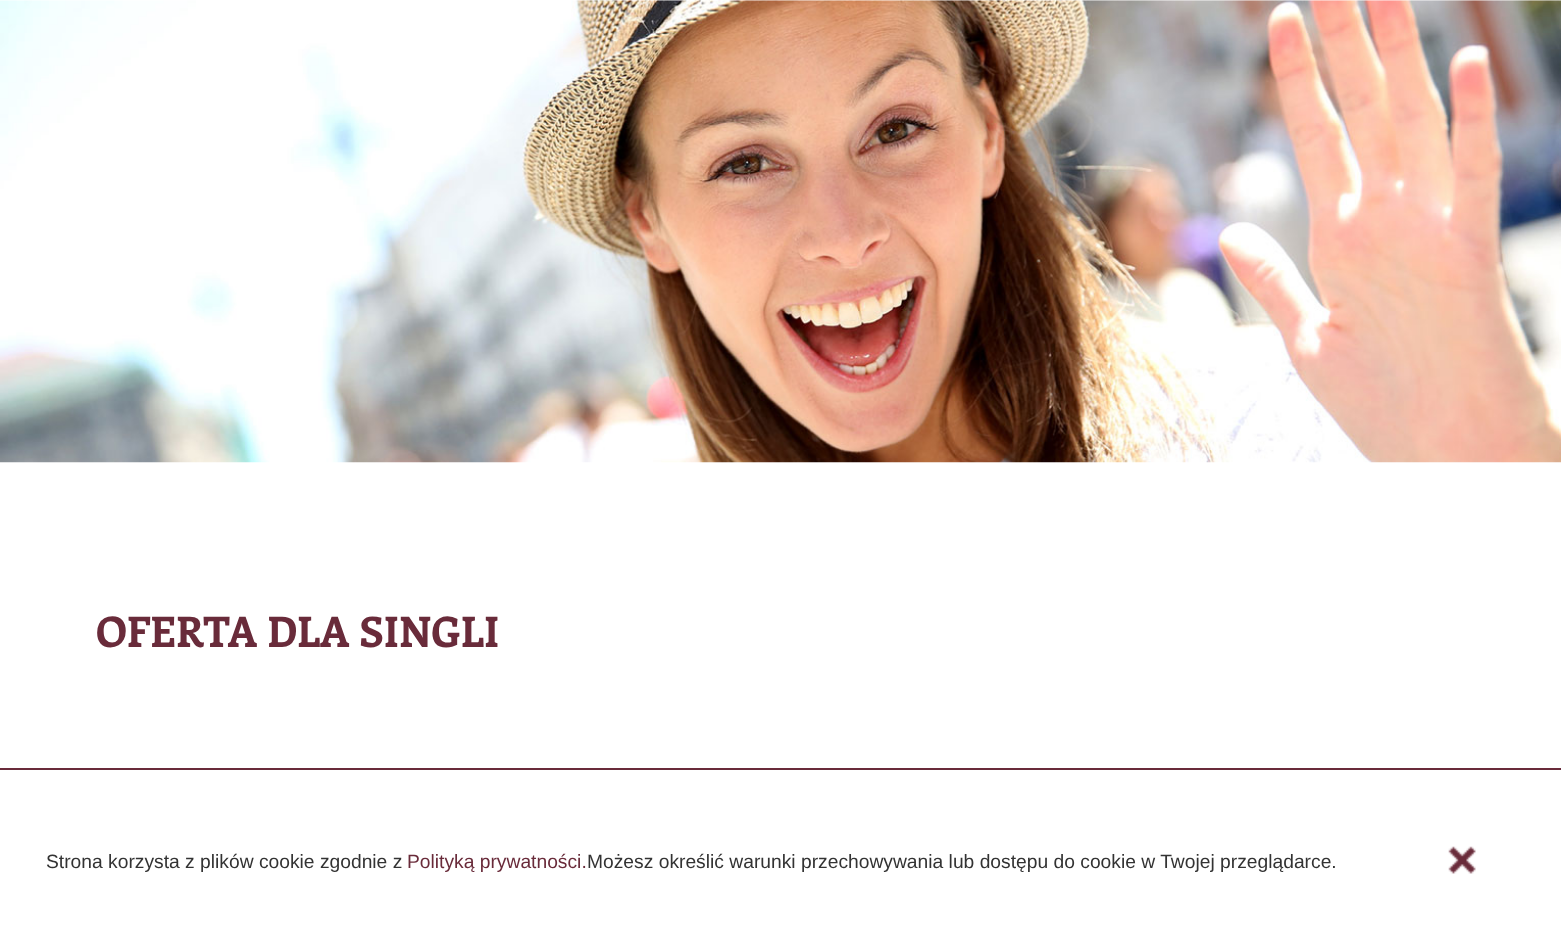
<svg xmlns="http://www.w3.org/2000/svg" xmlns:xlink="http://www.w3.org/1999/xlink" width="1561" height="944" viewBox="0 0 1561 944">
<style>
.cls-1{font:bold 42px Enriqueta;fill:#692b3a}
.cls-2{font:19.25px Liberation Sans;fill:#333333}
.cls-3{font:19.25px Liberation Sans;fill:#692b3a}
</style>
<rect width="100%" height="100%" fill="#ffffff"/>
<image xlink:href="image0.png" x="0" y="0" width="1561" height="463"/>
<rect fill="#692b3a" x="0" y="768" width="1561" height="2"/>
<image xlink:href="image1.png" x="1448" y="846" width="28" height="28"/>
<text class="cls-1" x="96" y="647">OFERTA DLA SINGLI</text>
<text class="cls-2" x="46" y="868">Strona korzysta z plików cookie zgodnie z</text>
<text class="cls-3" x="407" y="868">Polityką prywatności.</text>
<text class="cls-2" x="587" y="868">Możesz określić warunki przechowywania lub dostępu do cookie w Twojej przeglądarce.</text>
</svg>
